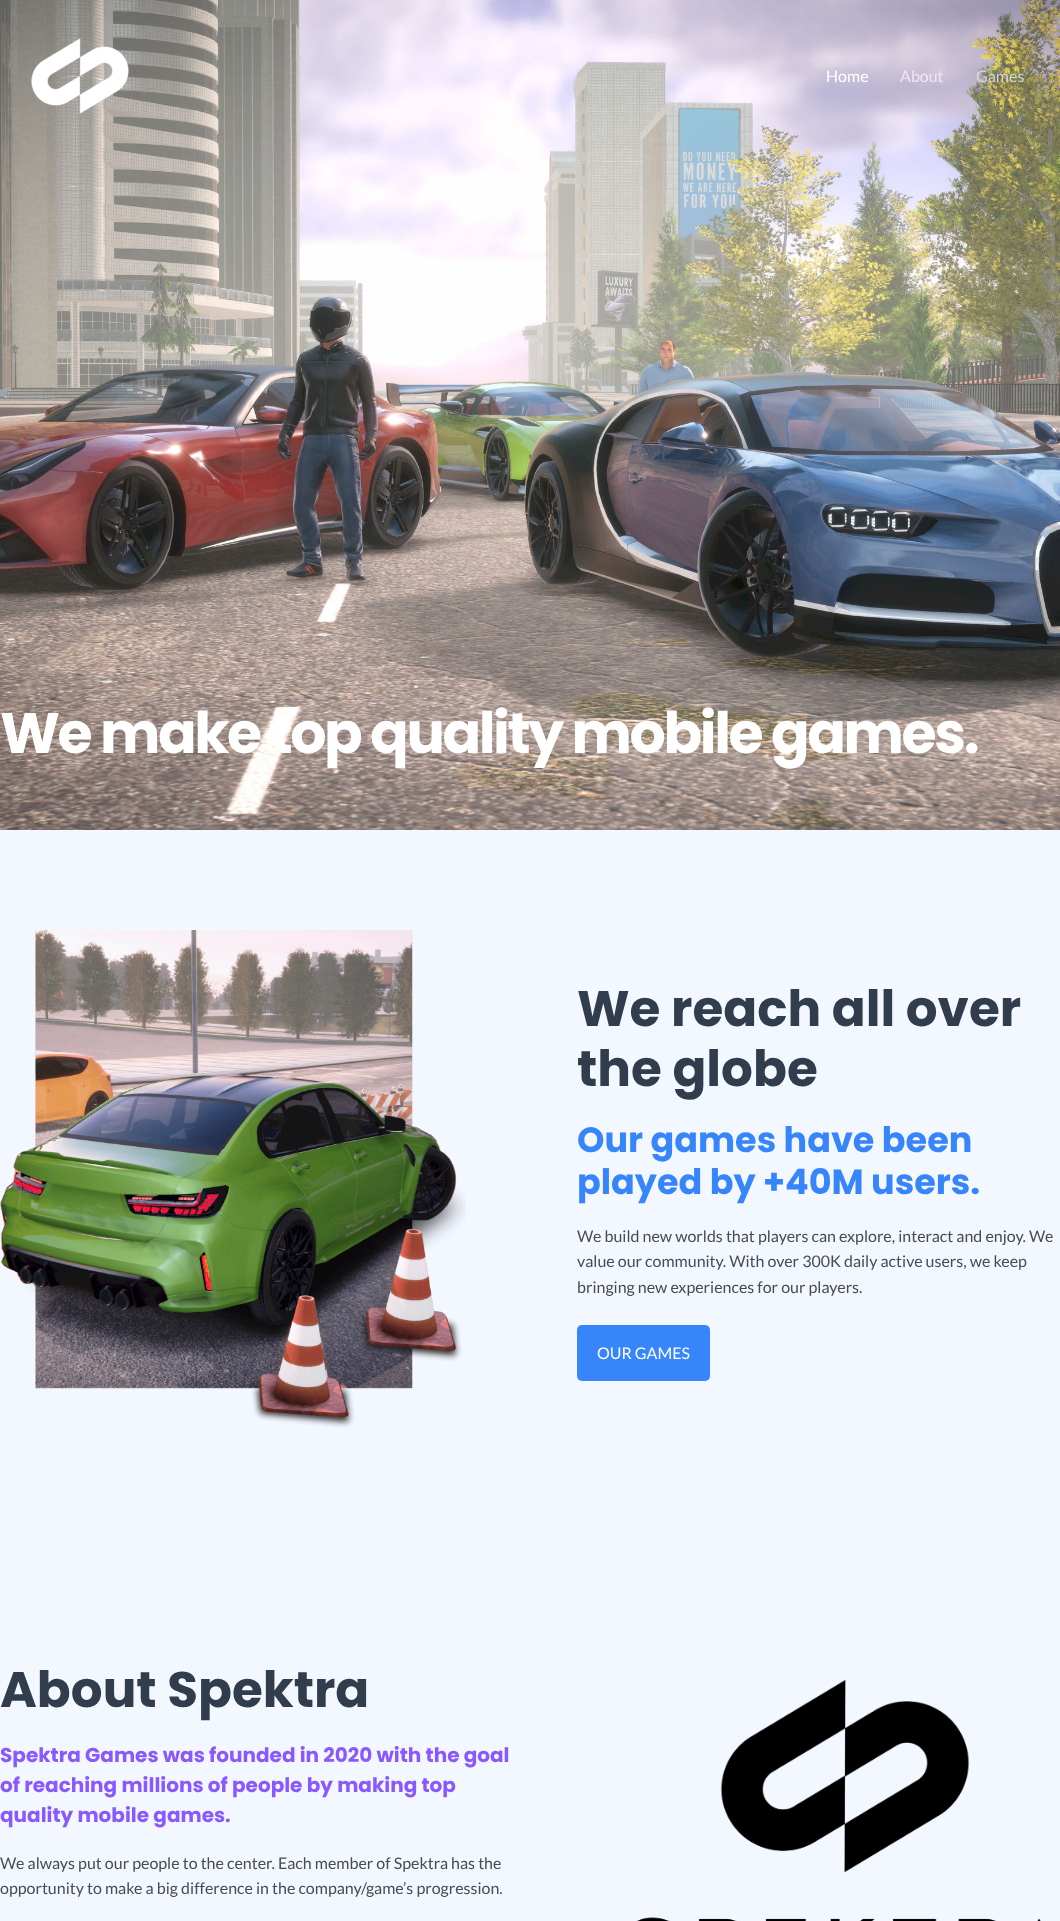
<svg xmlns="http://www.w3.org/2000/svg" xmlns:xlink="http://www.w3.org/1999/xlink" width="1060" height="1921" viewBox="0 0 1060 1921">
<style>
.cls-1{font:16px Lato;fill:#ffffff}
.cls-2{font:16px Lato;fill:#ece9f1}
.cls-3{font:16px Lato;fill:#d8d7cd}
.cls-4{font:bold 57px Poppins;letter-spacing:-2.4px;fill:#ffffff}
.cls-5{font:bold 50px Poppins;fill:#313c4d}
.cls-6{font:bold 35px Poppins;fill:#3685fb}
.cls-7{font:16px Lato;fill:#484c50}
.cls-8{font:bold 20px Poppins;fill:#8958fe}
</style>
<rect width="100%" height="100%" fill="#f3f7ff"/>
<image xlink:href="image1.png" x="0" y="0" width="1060" height="830"/>
<image xlink:href="image0.png" x="31" y="38" width="98" height="76"/>
<image xlink:href="image2.png" x="0" y="930" width="466" height="498"/>
<rect fill="#3685fb" x="577" y="1325" width="133" height="56" rx="5"/>
<image xlink:href="image3.png" x="636" y="1680" width="405" height="241"/>
<text class="cls-1" x="826" y="82">Home</text>
<text class="cls-2" x="900" y="82">About</text>
<text class="cls-3" x="976" y="82">Games</text>
<text class="cls-4" x="0" y="753">We make top quality mobile games.</text>
<text class="cls-5"><tspan x="577" y="1026">We reach all over</tspan><tspan x="577" y="1086">the globe</tspan></text>
<text class="cls-6"><tspan x="577" y="1152">Our games have been</tspan><tspan x="577" y="1194">played by +40M users.</tspan></text>
<text class="cls-7"><tspan x="577" y="1242">We build new worlds that players can explore, interact and enjoy. We</tspan><tspan x="577" y="1267">value our community. With over 300K daily active users, we keep</tspan><tspan x="577" y="1293">bringing new experiences for our players.</tspan></text>
<text class="cls-1" x="597" y="1359">OUR GAMES</text>
<text class="cls-5" x="0" y="1707">About Spektra</text>
<text class="cls-8"><tspan x="0" y="1762">Spektra Games was founded in 2020 with the goal</tspan><tspan x="0" y="1792">of reaching millions of people by making top</tspan><tspan x="0" y="1822">quality mobile games.</tspan></text>
<text class="cls-7"><tspan x="0" y="1869">We always put our people to the center. Each member of Spektra has the</tspan><tspan x="0" y="1894">opportunity to make a big difference in the company/game’s progression.</tspan></text>
</svg>
